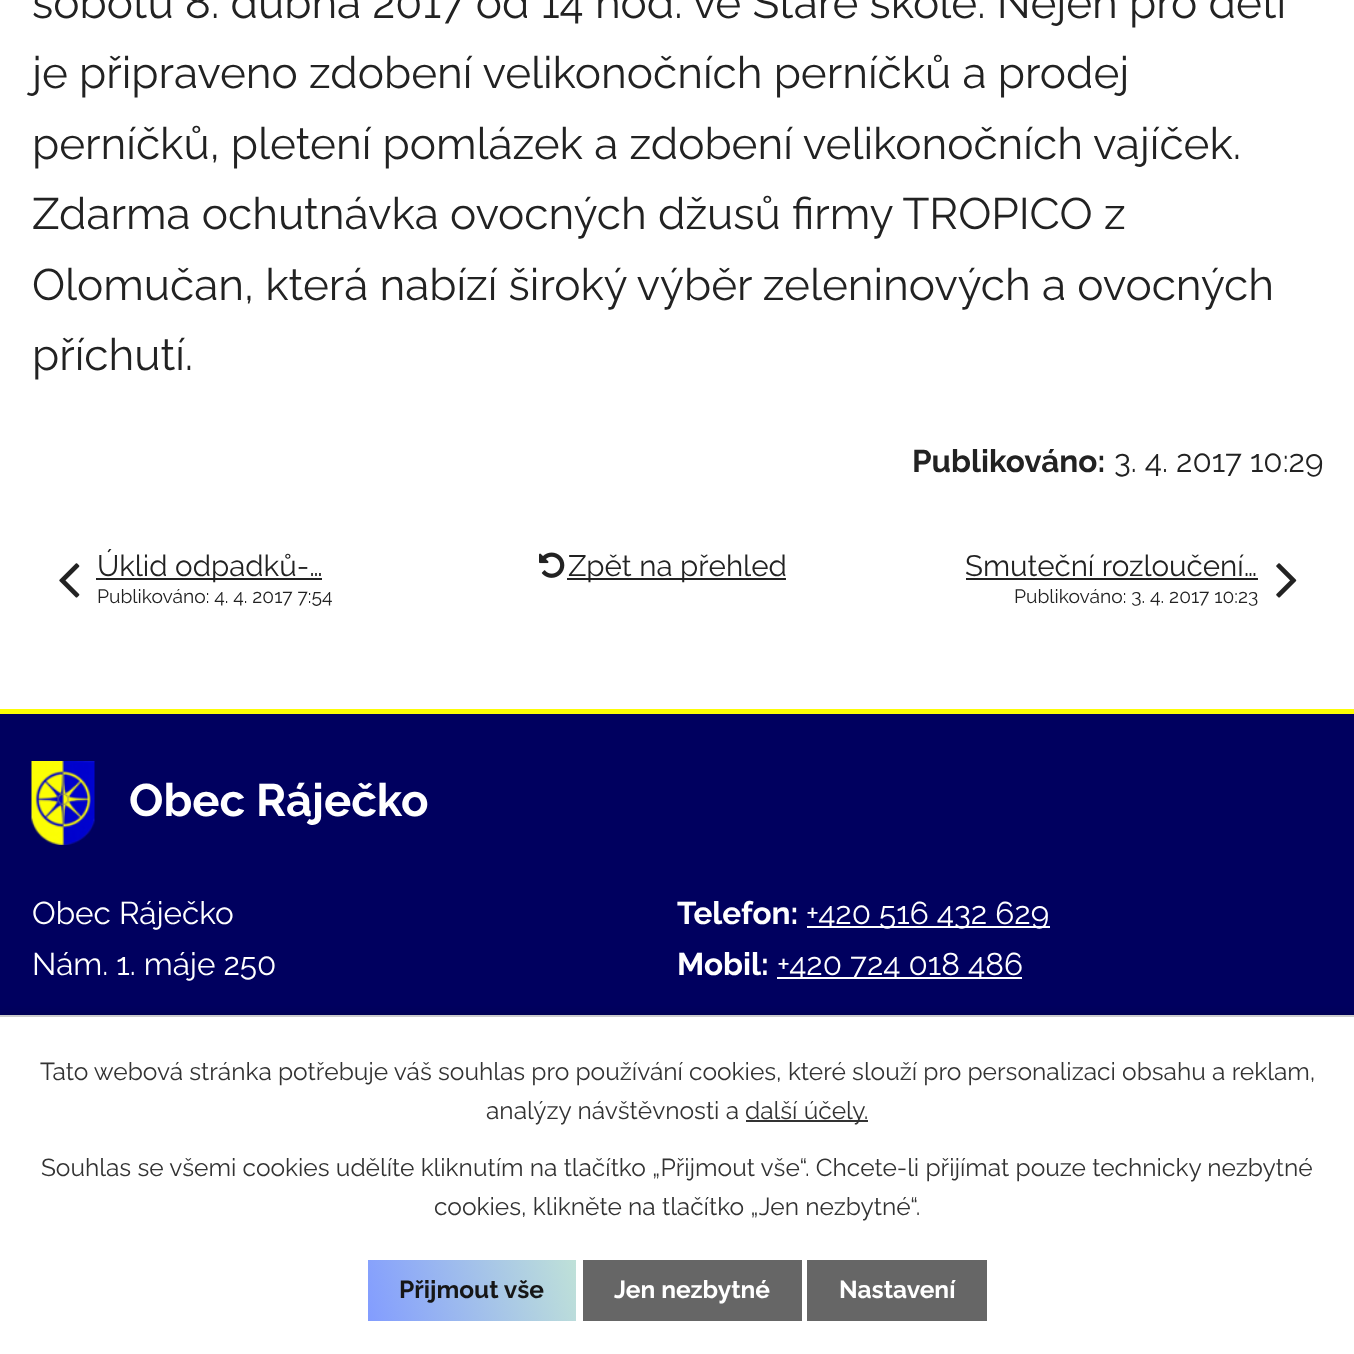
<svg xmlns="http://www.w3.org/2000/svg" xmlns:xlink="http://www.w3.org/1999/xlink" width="1354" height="1354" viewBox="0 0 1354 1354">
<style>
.cls-1{font:44.1px Raleway;fill:#222222}
.cls-2{font:bold 31.5px Raleway;fill:#222222}
.cls-3{font:31.5px Raleway;fill:#222222}
.cls-4{font:29.5px Raleway;fill:#222222}
.cls-5{font:19.25px Raleway;fill:#222222}
.cls-6{font:bold 45.5px Raleway;fill:#ffffff}
.cls-7{font:31.5px Raleway;fill:#ffffff}
.cls-8{font:bold 31.5px Raleway;fill:#ffffff}
.cls-9{font:24.5px Raleway;fill:#333333}
.cls-10{font:bold 24.5px Raleway;fill:#161616}
.cls-11{font:bold 24.5px Raleway;fill:#ffffff}
</style>
<defs>
<linearGradient id="g1" gradientUnits="userSpaceOnUse" x1="367" y1="1321" x2="576" y2="1261"><stop offset="0" stop-color="#829cff"/><stop offset="1" stop-color="#bfe1d8"/></linearGradient>
</defs>
<rect width="100%" height="100%" fill="#ffffff"/>
<image xlink:href="image0.png" x="59" y="563" width="21" height="35"/>
<rect fill="#222222" x="96" y="578" width="226" height="2"/>
<image xlink:href="image1.png" x="539" y="552" width="26" height="26"/>
<rect fill="#222222" x="567" y="578" width="219" height="2"/>
<rect fill="#222222" x="966" y="578" width="292" height="2"/>
<image xlink:href="image2.png" x="1276" y="563" width="21" height="35"/>
<rect fill="#00005f" x="0" y="714" width="1354" height="301"/>
<rect fill="#fcfd04" x="0" y="709" width="1354" height="5"/>
<image xlink:href="image3.png" x="31" y="761" width="64" height="84"/>
<rect fill="#ffffff" x="807" y="926" width="243" height="2"/>
<rect fill="#ffffff" x="777" y="977" width="245" height="2"/>
<rect fill="#000000" fill-opacity="0.2" filter="blur(4.5px)" x="0" y="1015" width="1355" height="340"/>
<rect fill="#ffffff" x="0" y="1017" width="1354" height="337"/>
<rect fill="#cccccc" x="0" y="1015" width="1354" height="2"/>
<rect fill="#333333" x="746" y="1120" width="122" height="2"/>
<rect fill="url(#g1)" x="368" y="1260" width="208" height="61"/>
<rect fill="#666666" x="583" y="1260" width="219" height="61"/>
<rect fill="#666666" x="807" y="1260" width="180" height="61"/>
<text class="cls-1"><tspan x="32" y="18">sobotu 8. dubna 2017 od 14 hod. ve Staré škole. Nejen pro děti</tspan><tspan x="32" y="88">je připraveno zdobení velikonočních perníčků a prodej</tspan><tspan x="32" y="159">perníčků, pletení pomlázek a zdobení velikonočních vajíček.</tspan><tspan x="32" y="229">Zdarma ochutnávka ovocných džusů firmy TROPICO z</tspan><tspan x="32" y="300">Olomučan, která nabízí široký výběr zeleninových a ovocných</tspan><tspan x="32" y="370">příchutí.</tspan></text>
<text class="cls-2" x="912" y="472">Publikováno:</text>
<text class="cls-3" x="1114" y="472">3. 4. 2017 10:29</text>
<text class="cls-4" x="97" y="576">Úklid odpadků-…</text>
<text class="cls-5" x="97" y="603">Publikováno: 4. 4. 2017 7:54</text>
<text class="cls-4" x="568" y="576">Zpět na přehled</text>
<text class="cls-4" x="965" y="576">Smuteční rozloučení…</text>
<text class="cls-5" x="1014" y="603">Publikováno: 3. 4. 2017 10:23</text>
<text class="cls-6" x="129" y="816">Obec Ráječko</text>
<text class="cls-7"><tspan x="32" y="924">Obec Ráječko</tspan><tspan x="32" y="975">Nám. 1. máje 250</tspan></text>
<text class="cls-8" x="677" y="924">Telefon:</text>
<text class="cls-7" x="806" y="924">+420 516 432 629</text>
<text class="cls-8" x="677" y="975">Mobil:</text>
<text class="cls-7" x="777" y="975">+420 724 018 486</text>
<text class="cls-9" x="40" y="1080">Tato webová stránka potřebuje váš souhlas pro používání cookies, které slouží pro personalizaci obsahu a reklam,</text>
<text class="cls-9" x="486" y="1119">analýzy návštěvnosti a</text>
<text class="cls-9" x="745" y="1119">další účely.</text>
<text class="cls-9" x="41" y="1176">Souhlas se všemi cookies udělíte kliknutím na tlačítko „Přijmout vše“. Chcete-li přijímat pouze technicky nezbytné</text>
<text class="cls-9" x="434" y="1215">cookies, klikněte na tlačítko „Jen nezbytné“.</text>
<text class="cls-10" x="399" y="1298">Přijmout vše</text>
<text class="cls-11" x="614" y="1298">Jen nezbytné</text>
<text class="cls-11" x="839" y="1298">Nastavení</text>
</svg>
